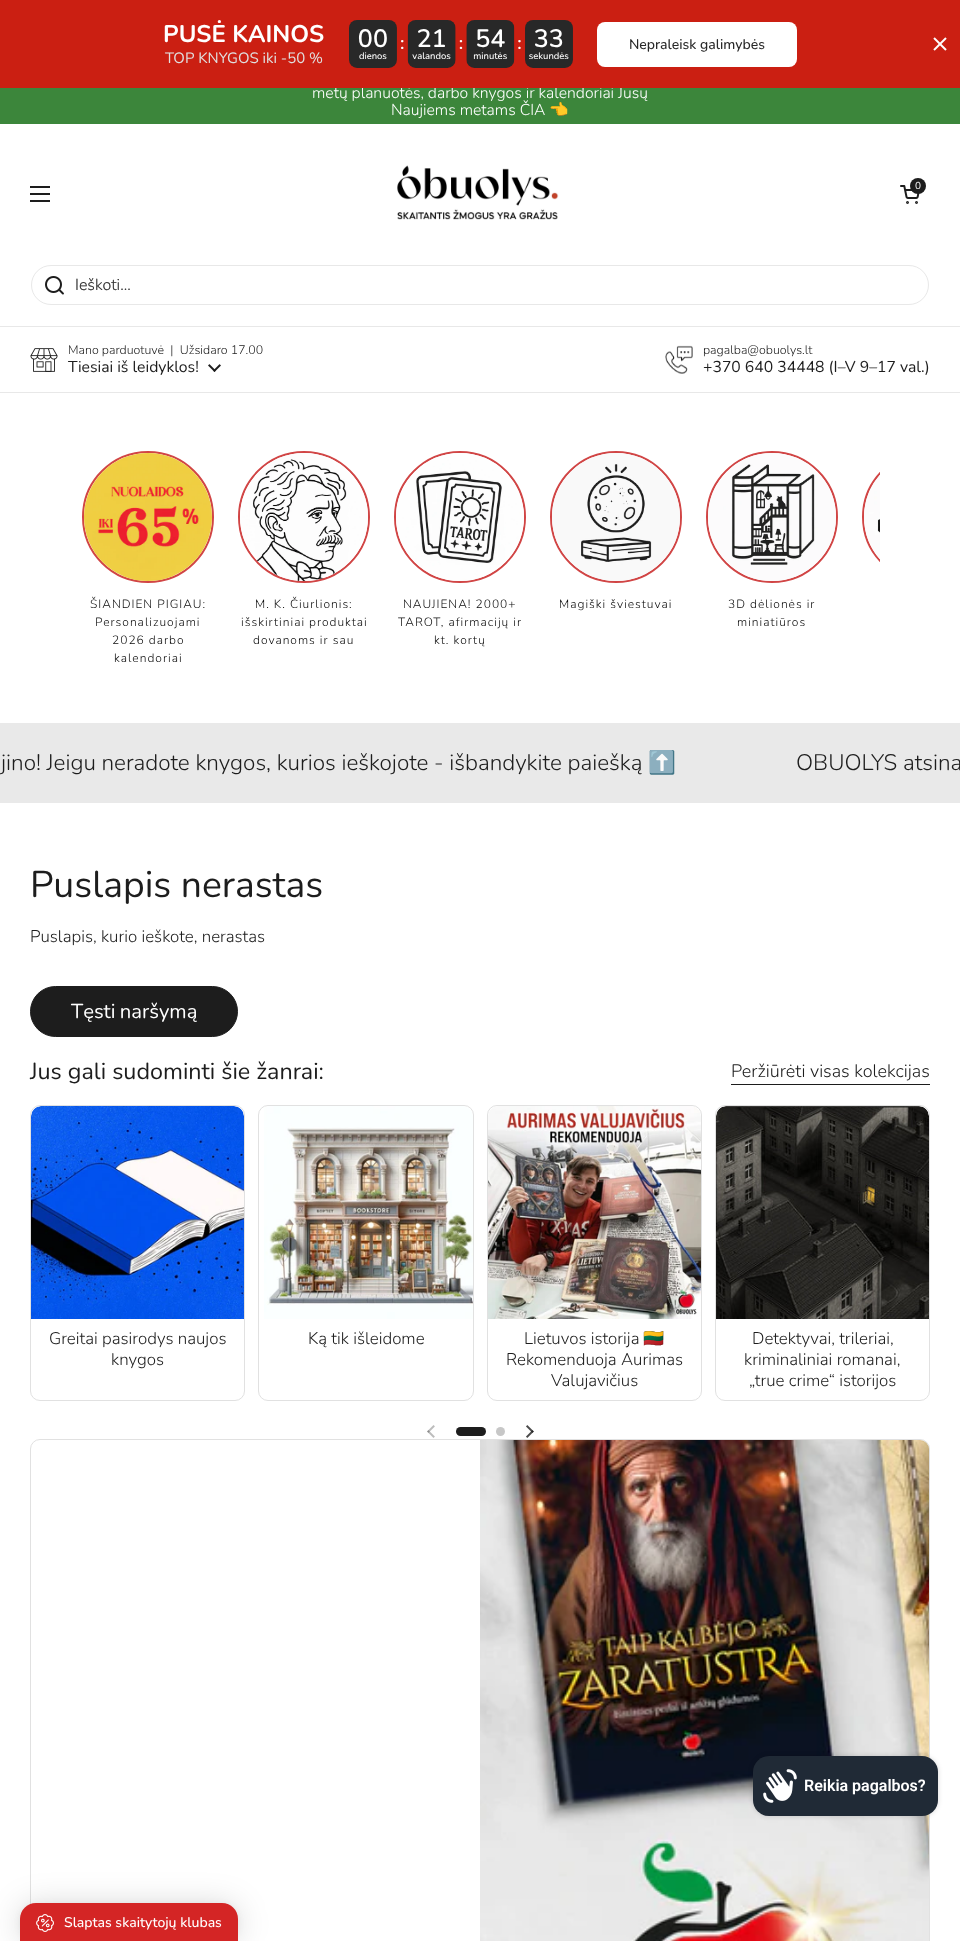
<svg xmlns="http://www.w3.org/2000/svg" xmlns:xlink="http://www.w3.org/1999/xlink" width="960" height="1941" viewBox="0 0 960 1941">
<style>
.cls-1{font:300 15.75px Nunito;fill:#ffffff}
.cls-2{font:500 14px Nunito;fill:#282828}
.cls-3{font:15px Nunito;fill:#e0e0e0}
.cls-4{font:bold 24px Nunito;fill:#ffffff}
.cls-5{font:15.75px Noto Color Emoji;fill:#ffffff}
.cls-6{font:10px Nunito;fill:#ffffff}
.cls-7{font:300 16px Nunito;fill:#6a6a6a}
.cls-8{font:300 12.4px Nunito;fill:#1d1d1d}
.cls-9{font:15.75px Nunito;fill:#1d1d1d}
.cls-10{font:300 12px Nunito;letter-spacing:1px;fill:#0c0c0c}
.cls-11{font:300 22.5px Nunito;fill:#1d1d1d}
.cls-12{font:22.5px 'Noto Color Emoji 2';fill:#1d1d1d}
.cls-13{font:37.25px Nunito;fill:#1d1d1d}
.cls-14{font:300 16.9px Nunito;fill:#1d1d1d}
.cls-15{font:20.25px Nunito;fill:#ffffff}
.cls-16{font:23.3px Nunito;fill:#1d1d1d}
.cls-17{font:300 18px Nunito;fill:#1d1d1d}
.cls-18{font:16.9px 'Noto Color Emoji 2';fill:#1d1d1d}
.cls-19{font:600 16px Roboto;fill:#ffffff}
.cls-20{font:500 14px Nunito;fill:#ffffff}
</style>
<defs>
<clipPath id="clip1"><rect x="80" y="449" width="800" height="218"/></clipPath>
</defs>
<rect width="100%" height="100%" fill="#ffffff"/>
<rect fill="#3c863b" x="0" y="88" width="960" height="36"/>
<rect fill="#1d1d1d" x="30" y="186" width="20" height="2"/>
<rect fill="#1d1d1d" x="30" y="193" width="20" height="2"/>
<rect fill="#1d1d1d" x="30" y="200" width="20" height="2"/>
<image xlink:href="image2.png" x="397" y="165" width="162" height="55"/>
<image xlink:href="image3.png" x="900" y="185" width="20" height="19"/>
<circle fill="#1d1d1d" cx="918" cy="186" r="8"/>
<rect fill="#e8e8e8" x="0" y="326" width="960" height="1"/>
<rect fill="none" stroke="#e8e8e8" x="31.5" y="265.5" width="897" height="39" rx="19.5"/>
<image xlink:href="image4.png" x="45" y="276" width="19" height="19"/>
<rect fill="#e8e8e8" x="0" y="392" width="960" height="1"/>
<image xlink:href="image5.png" x="30" y="348" width="28" height="24"/>
<image xlink:href="image6.png" x="208" y="364" width="13" height="8"/>
<image xlink:href="image7.png" x="665" y="345" width="28" height="29"/>
<g clip-path="url(#clip1)">
<circle fill="none" stroke="#d14545" stroke-width="2" cx="928" cy="517" r="65"/>
</g>
<image xlink:href="image9.png" x="864" y="474" width="16" height="86"/>
<circle fill="none" stroke="#d14545" stroke-width="2" cx="148" cy="517" r="65"/>
<image xlink:href="image10.png" x="84" y="453" width="128" height="128"/>
<circle fill="none" stroke="#d14545" stroke-width="2" cx="304" cy="517" r="65"/>
<image xlink:href="image11.png" x="240" y="453" width="128" height="128"/>
<circle fill="none" stroke="#d14545" stroke-width="2" cx="460" cy="517" r="65"/>
<image xlink:href="image12.png" x="396" y="453" width="128" height="128"/>
<circle fill="none" stroke="#d14545" stroke-width="2" cx="616" cy="517" r="65"/>
<image xlink:href="image13.png" x="552" y="453" width="128" height="128"/>
<circle fill="none" stroke="#d14545" stroke-width="2" cx="772" cy="517" r="65"/>
<image xlink:href="image14.png" x="708" y="453" width="128" height="128"/>
<rect fill="#e9e9e9" x="0" y="723" width="960" height="80"/>
<rect fill="#1d1d1d" stroke="#1d1d1d" x="30.5" y="986.5" width="207" height="50" rx="25"/>
<rect fill="#1d1d1d" x="731" y="1084" width="199" height="1"/>
<rect fill="none" stroke="#e1e1e1" x="30.5" y="1105.5" width="214" height="295" rx="9.5"/>
<image xlink:href="image15.png" x="31" y="1106" width="213" height="213"/>
<rect fill="none" stroke="#e1e1e1" x="258.5" y="1105.5" width="215" height="295" rx="9.5"/>
<image xlink:href="image16.png" x="264" y="1106" width="209" height="213"/>
<rect fill="none" stroke="#e1e1e1" x="487.5" y="1105.5" width="214" height="295" rx="9.5"/>
<image xlink:href="image17.png" x="488" y="1106" width="213" height="213"/>
<rect fill="none" stroke="#e1e1e1" x="715.5" y="1105.5" width="214" height="295" rx="9.5"/>
<image xlink:href="image18.png" x="716" y="1106" width="213" height="213"/>
<image xlink:href="image19.png" x="427" y="1425" width="8" height="13"/>
<rect fill="#1d1d1d" x="456" y="1427" width="30" height="9" rx="4.5"/>
<circle fill="#c7c7c7" cx="500.5" cy="1431.5" r="4.5"/>
<image xlink:href="image20.png" x="526" y="1425" width="8" height="13"/>
<rect fill="none" stroke="#e1e1e1" x="30.5" y="1439.5" width="899" height="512" rx="9.5"/>
<image xlink:href="image21.png" x="480" y="1440" width="449" height="501"/>
<rect fill="#000000" fill-opacity="0.15" filter="blur(2.5px)" x="753" y="1756" width="185" height="60" rx="16"/>
<rect fill="#202a36" x="753" y="1756" width="185" height="60" rx="16"/>
<image xlink:href="image22.png" x="763" y="1769" width="34" height="34"/>
<rect fill="#000000" fill-opacity="0.16" filter="blur(16px)" x="20" y="1905" width="218" height="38" rx="16"/>
<rect fill="#000000" fill-opacity="0.06" filter="blur(3px)" x="20" y="1904" width="218" height="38" rx="16"/>
<path fill="#d42525" d="M36 1903H222C231 1903 238 1910 238 1919V1941H20V1919C20 1910 27 1903 36 1903Z"/>
<image xlink:href="image23.png" x="36" y="1914" width="18" height="18"/>
<text class="cls-1" x="312" y="98">metų planuotės, darbo knygos ir kalendoriai Jūsų</text>
<rect fill="#cb1f12" x="0" y="0" width="960" height="88"/>
<image xlink:href="image1.png" x="933" y="37" width="14" height="14"/>
<image xlink:href="image0.png" x="349" y="20" width="224" height="48"/>
<rect fill="#ffffff" x="597" y="22" width="200" height="45" rx="8"/>
<text class="cls-2" x="629" y="49">Nepraleisk galimybės</text>
<text class="cls-3" x="165" y="63">TOP KNYGOS iki -50 %</text>
<text class="cls-4" x="163" y="42">PUSĖ KAINOS</text>
<text class="cls-1" x="391" y="115">Naujiems metams ČIA</text>
<text class="cls-5" x="549" y="115">👈</text>
<text class="cls-6" x="915" y="189">0</text>
<text class="cls-7" x="75" y="290">Ieškoti...</text>
<text class="cls-8" xml:space="preserve" x="68" y="354">Mano parduotuvė  |  Užsidaro 17.00</text>
<text class="cls-9" x="68" y="372">Tiesiai iš leidyklos!</text>
<text class="cls-8" x="703" y="354">pagalba@obuolys.lt</text>
<text class="cls-9" x="703" y="372">+370 640 34448 (I–V 9–17 val.)</text>
<image xlink:href="image8.png" x="76" y="278" width="54" height="13"/>
<text class="cls-10" x="90" y="608">ŠIANDIEN PIGIAU:</text>
<text class="cls-10" x="95" y="626">Personalizuojami</text>
<text class="cls-10" x="112" y="644">2026 darbo</text>
<text class="cls-10" x="114" y="662">kalendoriai</text>
<text class="cls-10" x="255" y="608">M. K. Čiurlionis:</text>
<text class="cls-10" x="241" y="626">išskirtiniai produktai</text>
<text class="cls-10" x="253" y="644">dovanoms ir sau</text>
<text class="cls-10" x="403" y="608">NAUJIENA! 2000+</text>
<text class="cls-10" x="398" y="626">TAROT, afirmacijų ir</text>
<text class="cls-10" x="434" y="644">kt. kortų</text>
<text class="cls-10" x="559" y="608">Magiški šviestuvai</text>
<text class="cls-10" x="728" y="608">3D dėlionės ir</text>
<text class="cls-10" x="737" y="626">miniatiūros</text>
<text class="cls-11" x="1" y="770">jino! Jeigu neradote knygos, kurios ieškojote - išbandykite paiešką</text>
<text class="cls-12" x="648" y="770">⬆️</text>
<text class="cls-11" x="796" y="770">OBUOLYS atsina</text>
<text class="cls-13" x="30" y="897">Puslapis nerastas</text>
<text class="cls-14" x="30" y="942">Puslapis, kurio ieškote, nerastas</text>
<text class="cls-15" x="71" y="1018" word-spacing="-1">Tęsti naršymą</text>
<text class="cls-16" x="30" y="1079">Jus gali sudominti šie žanrai:</text>
<text class="cls-17" x="731" y="1077">Peržiūrėti visas kolekcijas</text>
<text class="cls-14" x="49" y="1344">Greitai pasirodys naujos</text>
<text class="cls-14" x="111" y="1365">knygos</text>
<text class="cls-14" x="308" y="1344">Ką tik išleidome</text>
<text class="cls-14" x="524" y="1344">Lietuvos istorija</text>
<text class="cls-18" x="643" y="1344">🇱🇹</text>
<text class="cls-14" x="506" y="1365">Rekomenduoja Aurimas</text>
<text class="cls-14" x="551" y="1386">Valujavičius</text>
<text class="cls-14" x="752" y="1344">Detektyvai, trileriai,</text>
<text class="cls-14" x="744" y="1365">kriminaliniai romanai,</text>
<text class="cls-14" x="749" y="1386">„true crime“ istorijos</text>
<text class="cls-19" x="804" y="1791">Reikia pagalbos?</text>
<text class="cls-20" x="64" y="1927">Slaptas skaitytojų klubas</text>
</svg>
